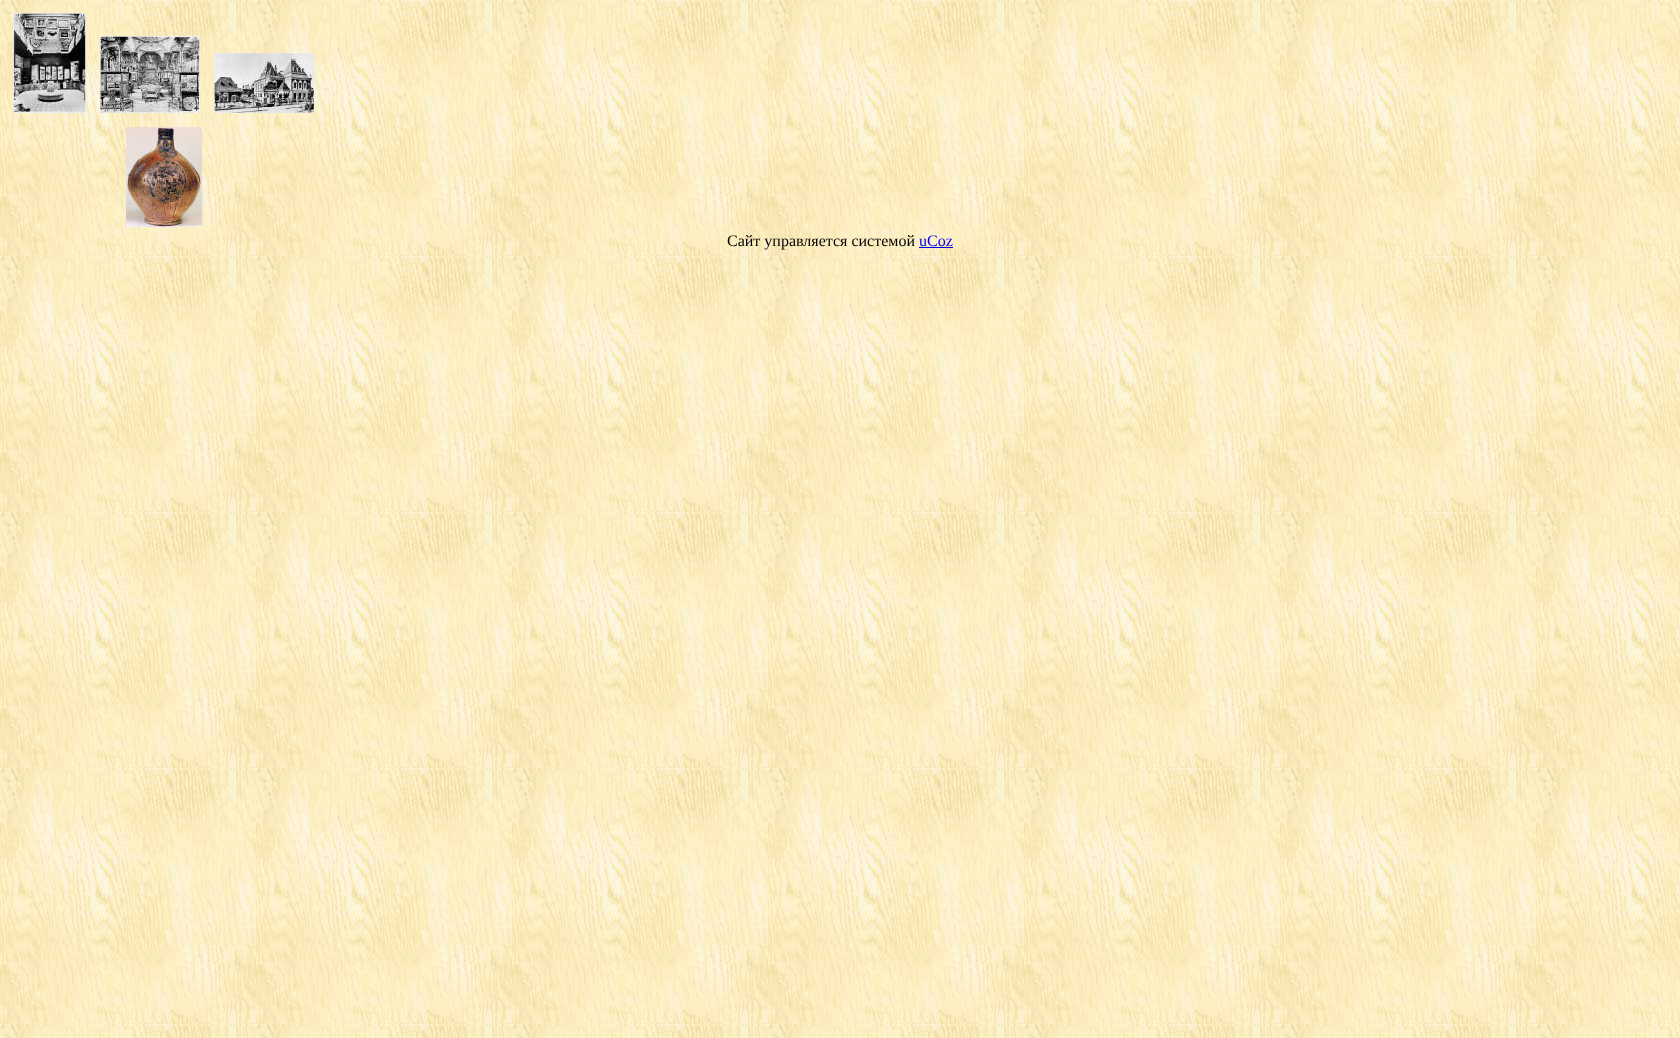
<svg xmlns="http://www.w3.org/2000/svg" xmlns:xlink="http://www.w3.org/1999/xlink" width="1680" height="1038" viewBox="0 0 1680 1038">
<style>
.cls-1{font:16px Liberation Serif;fill:#000000}
.cls-2{font:16px Liberation Serif;fill:#0000ee}
</style>
<rect width="100%" height="100%" fill="#ffffff"/>
<image xlink:href="image0.png" x="0" y="0" width="1680" height="1038"/>
<image xlink:href="image1.png" x="13" y="13" width="73" height="100"/>
<image xlink:href="image2.png" x="100" y="36" width="100" height="77"/>
<image xlink:href="image3.png" x="214" y="53" width="100" height="60"/>
<image xlink:href="image4.png" x="126" y="127" width="76" height="100"/>
<rect fill="#0000ee" x="919" y="247" width="34" height="1"/>
<text class="cls-1" x="727" y="246">Сайт управляется системой</text>
<text class="cls-2" x="919" y="246">uCoz</text>
</svg>
